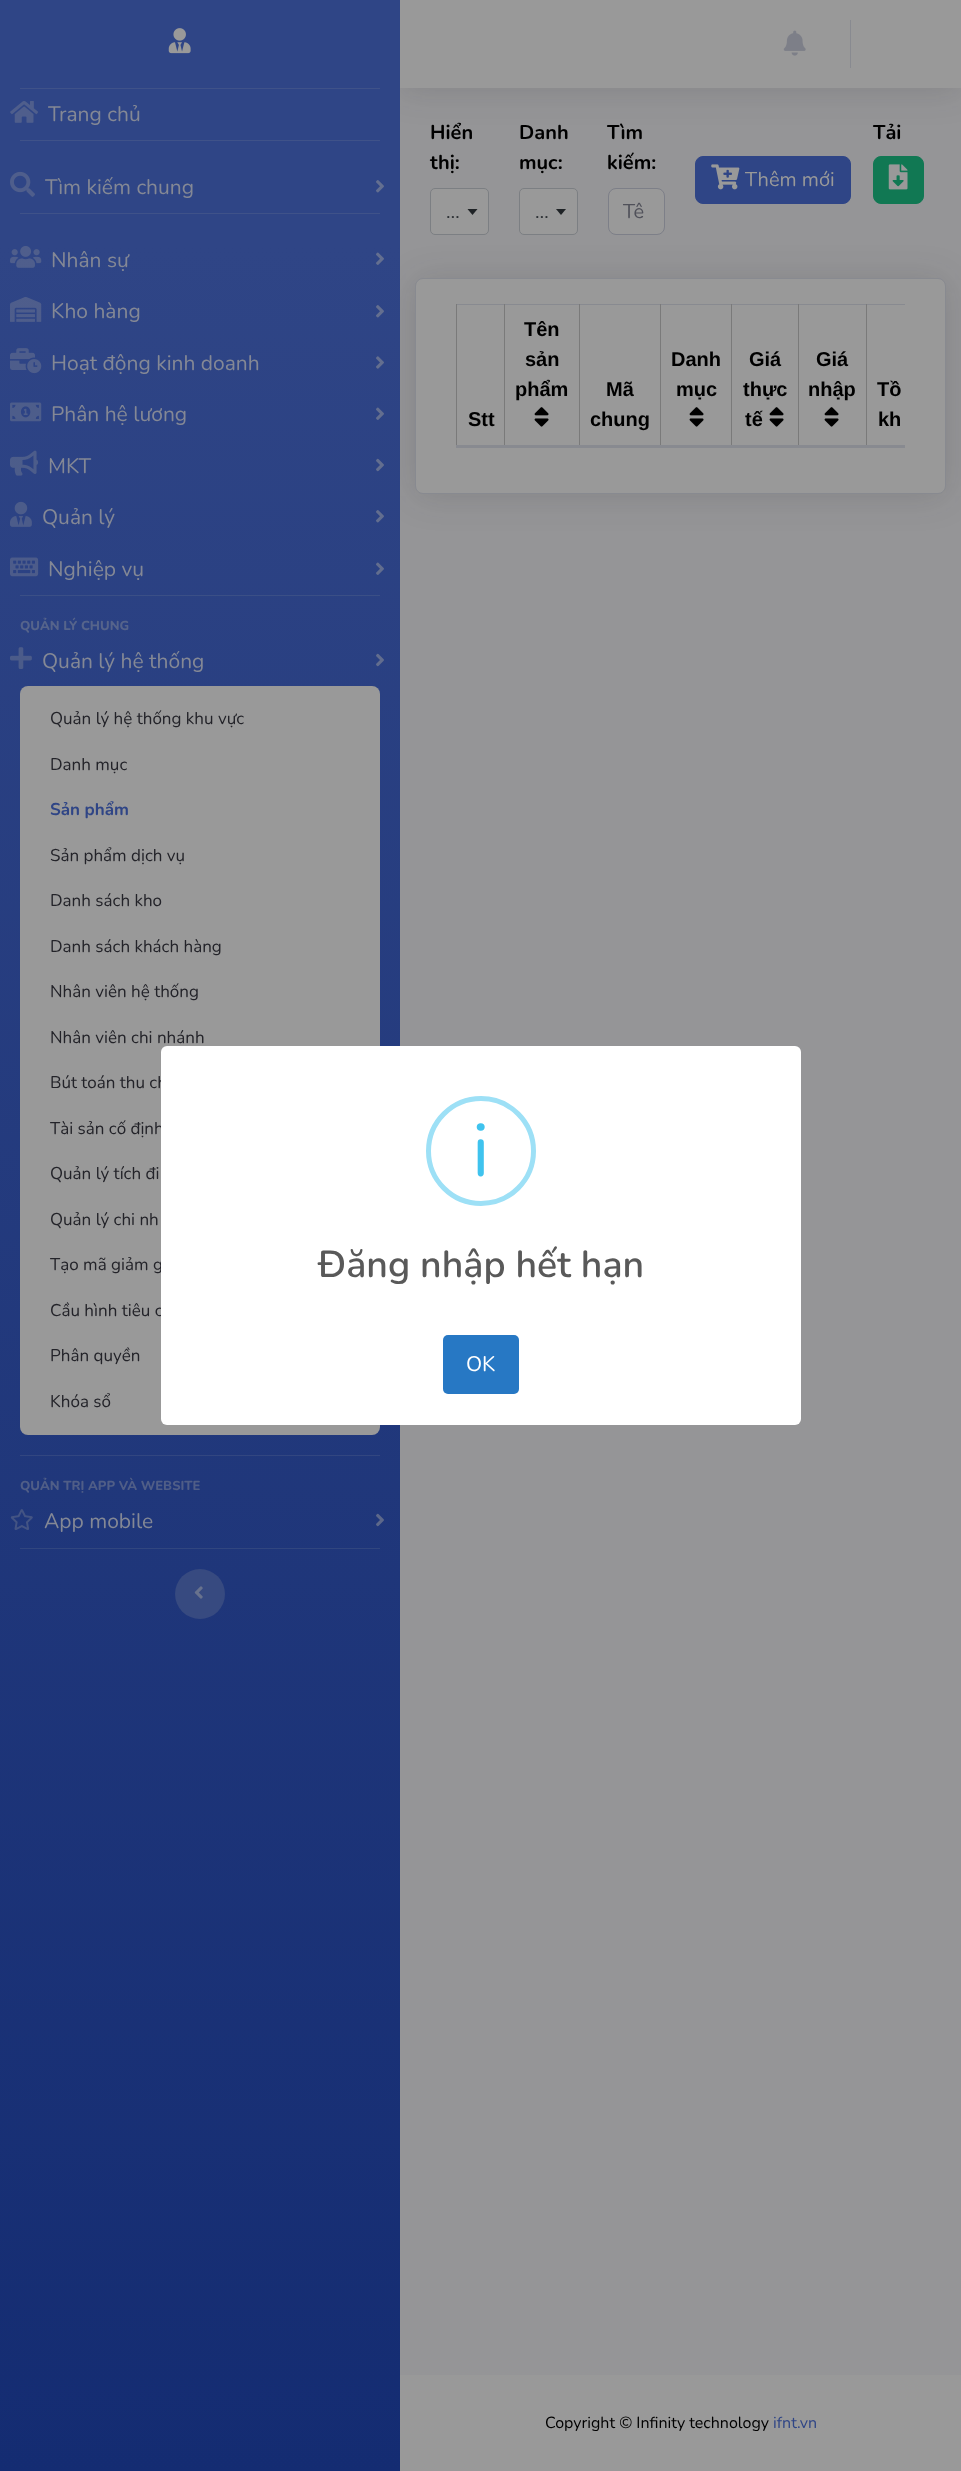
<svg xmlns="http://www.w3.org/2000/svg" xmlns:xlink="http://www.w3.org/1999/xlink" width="961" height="2471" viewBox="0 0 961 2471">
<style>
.cls-1{font:21px Nunito;fill:#848895}
.cls-2{font:800 13px Nunito;fill:#56648b}
.cls-3{font:17px Nunito;fill:#232329}
.cls-4{font:bold 17px Nunito;fill:#2f4586}
.cls-5{font:800 13px Nunito;fill:#505e87}
.cls-6{font:bold 20px Nunito;fill:#000000}
.cls-7{font:20px Nunito;fill:#2c3034}
.cls-8{font:20px Nunito;fill:#50515a}
.cls-9{font:20px Nunito;fill:#999999}
.cls-10{font:bold 20px Liberation Sans;fill:#000000}
.cls-11{font:16px Nunito;fill:#000000}
.cls-12{font:16px Nunito;fill:#2f4586}
.cls-13{font:75px Nunito;fill:#3fc3ee}
.cls-14{font:600 37.5px Nunito;fill:#595959}
.cls-15{font:21px Nunito;fill:#ffffff}
</style>
<defs>
<linearGradient id="g1" gradientUnits="userSpaceOnUse" x1="200" y1="0" x2="200" y2="2471"><stop offset="0.1" stop-color="#2f4586"/><stop offset="1" stop-color="#142c72"/></linearGradient>
<clipPath id="clip1"><rect x="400" y="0" width="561" height="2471"/></clipPath>
</defs>
<rect width="100%" height="100%" fill="#ffffff"/>
<rect fill="url(#g1)" x="0" y="0" width="400" height="2471"/>
<image xlink:href="image0.png" x="168" y="28" width="23" height="26"/>
<rect fill="#3f5289" x="20" y="88" width="360" height="1"/>
<image xlink:href="image1.png" x="10" y="101" width="28" height="22"/>
<rect fill="#3f5289" x="20" y="140" width="360" height="1"/>
<image xlink:href="image2.png" x="10" y="171" width="25" height="26"/>
<image xlink:href="image3.png" x="376" y="180" width="8" height="13"/>
<rect fill="#3f5289" x="20" y="213" width="360" height="1"/>
<image xlink:href="image4.png" x="10" y="246" width="32" height="22"/>
<image xlink:href="image5.png" x="376" y="252" width="8" height="13"/>
<image xlink:href="image6.png" x="10" y="297" width="32" height="25"/>
<image xlink:href="image7.png" x="376" y="305" width="8" height="13"/>
<image xlink:href="image8.png" x="10" y="348" width="32" height="26"/>
<image xlink:href="image9.png" x="376" y="356" width="8" height="13"/>
<image xlink:href="image10.png" x="10" y="402" width="32" height="20"/>
<image xlink:href="image11.png" x="376" y="407" width="8" height="13"/>
<image xlink:href="image12.png" x="10" y="450" width="29" height="26"/>
<image xlink:href="image13.png" x="376" y="458" width="8" height="14"/>
<image xlink:href="image14.png" x="10" y="501" width="22" height="26"/>
<image xlink:href="image15.png" x="376" y="510" width="8" height="13"/>
<image xlink:href="image16.png" x="10" y="557" width="29" height="20"/>
<image xlink:href="image17.png" x="376" y="562" width="8" height="13"/>
<rect fill="#3b4f86" x="20" y="595" width="360" height="1"/>
<image xlink:href="image18.png" x="10" y="647" width="22" height="22"/>
<image xlink:href="image19.png" x="376" y="653" width="8" height="14"/>
<rect fill="#999999" x="20" y="686" width="360" height="749" rx="8"/>
<rect fill="#324680" x="20" y="1455" width="360" height="1"/>
<image xlink:href="image20.png" x="10" y="1509" width="23" height="21"/>
<image xlink:href="image21.png" x="376" y="1513" width="8" height="14"/>
<rect fill="#31467f" x="20" y="1548" width="360" height="1"/>
<circle fill="#374a80" cx="200" cy="1594" r="25"/>
<image xlink:href="image22.png" x="194" y="1586" width="9" height="13"/>
<rect fill="#959597" x="400" y="88" width="561" height="2287"/>
<g clip-path="url(#clip1)">
<rect fill="#232329" fill-opacity="0.15" filter="blur(17.5px)" x="400" y="3" width="561" height="87"/>
</g>
<rect fill="#999999" x="400" y="0" width="561" height="88"/>
<image xlink:href="image23.png" x="783" y="30" width="23" height="26"/>
<rect fill="#888a90" x="850" y="20" width="1" height="48"/>
<rect fill="#999999" stroke="#7c7f83" x="430.5" y="188.5" width="58" height="46" rx="4.5"/>
<path fill="#1f2326" d="M467.5 209H477.5L472.5 215Z"/>
<rect fill="#999999" stroke="#7c7f83" x="519.5" y="188.5" width="58" height="46" rx="4.5"/>
<path fill="#1f2326" d="M556 209H566L561 215Z"/>
<rect fill="#999999" x="609" y="189" width="55" height="45" rx="6"/>
<rect fill="none" stroke="#7d7f88" x="608.5" y="188.5" width="56" height="46" rx="7.5"/>
<rect fill="#2f4586" stroke="#2f4586" x="695.5" y="156.5" width="155" height="47" rx="7.5"/>
<image xlink:href="image24.png" x="711" y="164" width="29" height="26"/>
<rect fill="#117853" stroke="#117853" x="873.5" y="156.5" width="50" height="47" rx="7.5"/>
<image xlink:href="image25.png" x="888" y="164" width="20" height="26"/>
<g clip-path="url(#clip1)">
<rect fill="#232329" fill-opacity="0.15" filter="blur(17.5px)" x="415" y="280" width="531" height="216" rx="8"/>
</g>
<rect fill="#999999" stroke="#888a90" x="415.5" y="278.5" width="530" height="215" rx="7.5"/>
<rect fill="#888a90" x="456" y="304" width="449" height="1"/>
<rect fill="#7a7a7a" x="504" y="304" width="1" height="144"/>
<rect fill="#7a7a7a" x="456" y="304" width="1" height="144"/>
<rect fill="#7a7a7a" x="579" y="304" width="1" height="144"/>
<image xlink:href="image26.png" x="534" y="407" width="15" height="20"/>
<rect fill="#7a7a7a" x="660" y="304" width="1" height="144"/>
<rect fill="#7a7a7a" x="731" y="304" width="1" height="144"/>
<image xlink:href="image26.png" x="689" y="407" width="15" height="20"/>
<rect fill="#7a7a7a" x="798" y="304" width="1" height="144"/>
<image xlink:href="image26.png" x="769" y="407" width="15" height="20"/>
<rect fill="#7a7a7a" x="866" y="304" width="1" height="144"/>
<image xlink:href="image26.png" x="824" y="407" width="15" height="20"/>
<rect fill="#888a90" x="456" y="445" width="449" height="3"/>
<rect fill="#999999" x="400" y="2375" width="561" height="96"/>
<text class="cls-1" x="48" y="121">Trang chủ</text>
<text class="cls-1" x="45" y="194">Tìm kiếm chung</text>
<text class="cls-1" x="51" y="267">Nhân sự</text>
<text class="cls-1" x="51" y="318">Kho hàng</text>
<text class="cls-1" x="51" y="370">Hoạt động kinh doanh</text>
<text class="cls-1" x="51" y="421">Phân hệ lương</text>
<text class="cls-1" x="48" y="473">MKT</text>
<text class="cls-1" x="42" y="524">Quản lý</text>
<text class="cls-1" x="48" y="576">Nghiệp vụ</text>
<text class="cls-2" x="20" y="630">QUẢN LÝ CHUNG</text>
<text class="cls-1" x="42" y="668">Quản lý hệ thống</text>
<text class="cls-3" x="50" y="724">Quản lý hệ thống khu vực</text>
<text class="cls-3" x="50" y="770">Danh mục</text>
<text class="cls-4" x="50" y="815">Sản phẩm</text>
<text class="cls-3" x="50" y="861">Sản phẩm dịch vụ</text>
<text class="cls-3" x="50" y="906">Danh sách kho</text>
<text class="cls-3" x="50" y="952">Danh sách khách hàng</text>
<text class="cls-3" x="50" y="997">Nhân viên hệ thống</text>
<text class="cls-3" x="50" y="1043">Nhân viên chi nhánh</text>
<text class="cls-3" x="50" y="1088">Bút toán thu ch</text>
<text class="cls-3" x="50" y="1134">Tài sản cố định</text>
<text class="cls-3" x="50" y="1179">Quản lý tích đi</text>
<text class="cls-3" x="50" y="1225">Quản lý chi nh</text>
<text class="cls-3" x="50" y="1270">Tạo mã giảm g</text>
<text class="cls-3" x="50" y="1316">Cầu hình tiêu c</text>
<text class="cls-3" x="50" y="1361">Phân quyền</text>
<text class="cls-3" x="50" y="1407">Khóa sổ</text>
<text class="cls-5" x="20" y="1490">QUẢN TRỊ APP VÀ WEBSITE</text>
<text class="cls-1" x="44" y="1528">App mobile</text>
<text class="cls-6"><tspan x="430" y="139">Hiển</tspan><tspan x="430" y="169">thị:</tspan></text>
<text class="cls-7" x="446" y="218">…</text>
<text class="cls-6"><tspan x="519" y="139">Danh</tspan><tspan x="519" y="169">mục:</tspan></text>
<text class="cls-7" x="535" y="218">…</text>
<text class="cls-6"><tspan x="607" y="139">Tìm</tspan><tspan x="607" y="169">kiếm:</tspan></text>
<text class="cls-8" x="623" y="218">Tê</text>
<text class="cls-9" x="745" y="186">Thêm mới</text>
<text class="cls-6" x="873" y="139">Tải</text>
<text class="cls-10" x="468" y="426">Stt</text>
<text class="cls-10" x="524" y="336">Tên</text>
<text class="cls-10" x="525" y="366">sản</text>
<text class="cls-10" x="515" y="396">phẩm</text>
<text class="cls-10" x="606" y="396">Mã</text>
<text class="cls-10" x="590" y="426">chung</text>
<text class="cls-10" x="671" y="366">Danh</text>
<text class="cls-10" x="676" y="396">mục</text>
<text class="cls-10" x="749" y="366">Giá</text>
<text class="cls-10" x="743" y="396">thực</text>
<text class="cls-10" x="745" y="426">tế</text>
<text class="cls-10" x="816" y="366">Giá</text>
<text class="cls-10" x="808" y="396">nhập</text>
<text class="cls-10" x="877" y="396">Tồ</text>
<text class="cls-10" x="878" y="426">kh</text>
<text class="cls-11" x="545" y="2428">Copyright © Infinity technology</text>
<text class="cls-12" x="773" y="2428">ifnt.vn</text>
<rect fill="#ffffff" x="161" y="1046" width="640" height="379" rx="6"/>
<circle fill="none" stroke="#9de0f6" stroke-width="5" cx="481" cy="1151" r="52.5"/>
<text class="cls-13" x="472" y="1176">i</text>
<text class="cls-14" x="318" y="1277">Đăng nhập hết hạn</text>
<rect fill="#2778c4" x="443" y="1335" width="76" height="59" rx="5"/>
<text class="cls-15" x="466" y="1371">OK</text>
</svg>
